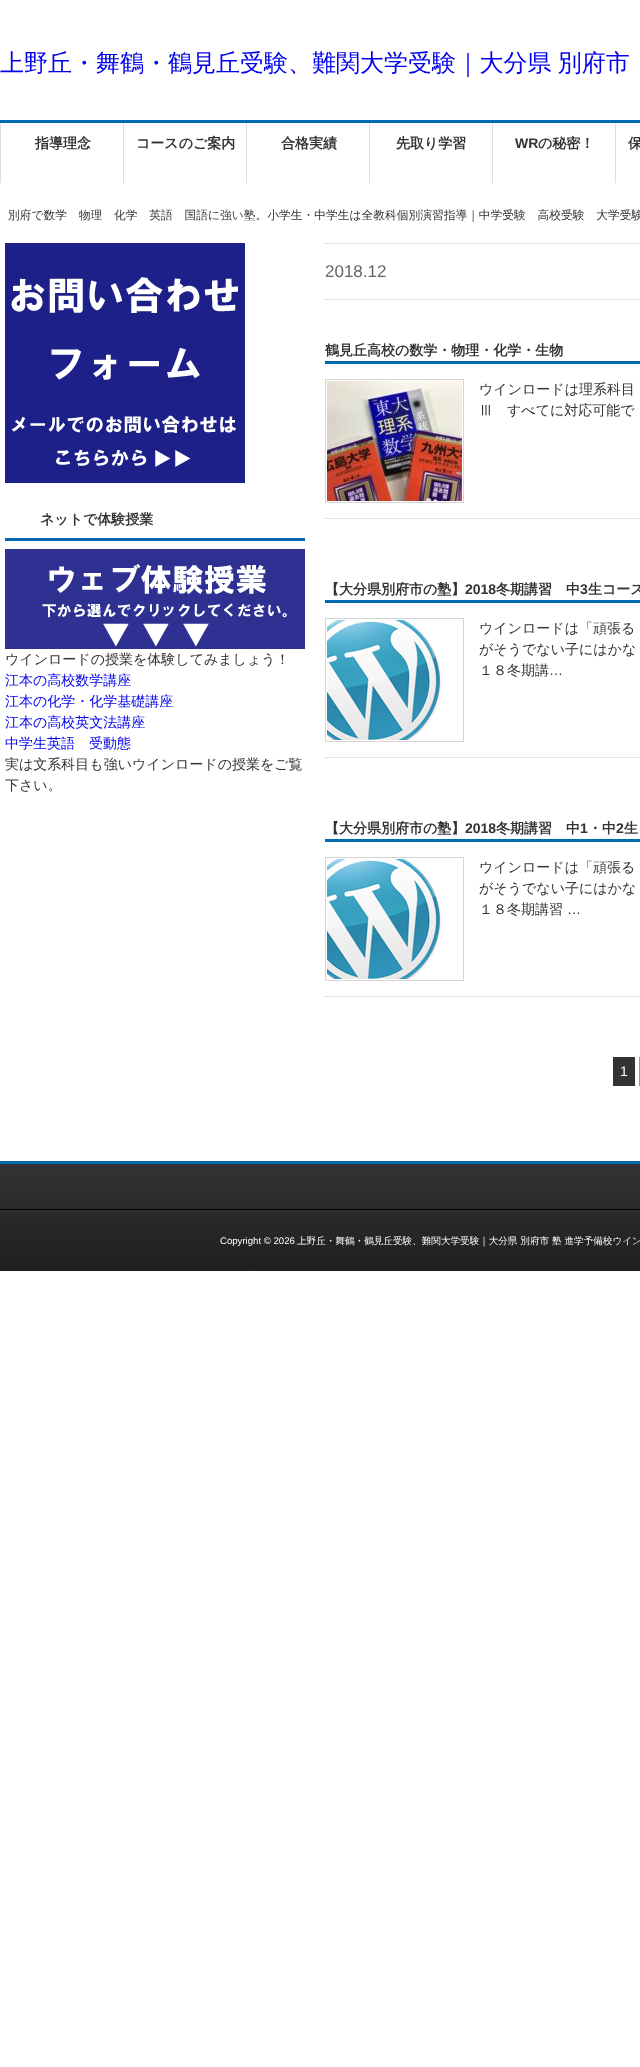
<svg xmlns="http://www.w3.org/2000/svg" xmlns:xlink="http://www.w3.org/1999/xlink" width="640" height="2067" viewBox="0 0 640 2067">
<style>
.cls-1{font:500 24px WenQuanYi Zen Hei;fill:#0000ee}
.cls-2{font:bold 14px WenQuanYi Zen Hei;fill:#333333}
.cls-3{font:bold 14px Liberation Sans;fill:#333333}
.cls-4{font:500 11.75px WenQuanYi Zen Hei;fill:#333333}
.cls-5{font:500 14px WenQuanYi Zen Hei;fill:#333333}
.cls-6{font:500 14px WenQuanYi Zen Hei;fill:#0000ee}
.cls-7{font:17px Liberation Sans;fill:#666666}
.cls-8{font:14px Liberation Sans;fill:#333333}
.cls-9{font:14px Liberation Sans;fill:#ffffff}
.cls-10{font:9.6px Liberation Sans;fill:#ffffff}
.cls-11{font:500 9.6px WenQuanYi Zen Hei;fill:#ffffff}
</style>
<defs>
<linearGradient id="g1" gradientUnits="userSpaceOnUse" x1="490" y1="1164" x2="490" y2="1271"><stop offset="0" stop-color="#333333"/><stop offset="1" stop-color="#1f1f1f"/></linearGradient>
</defs>
<rect width="100%" height="100%" fill="#ffffff"/>
<rect fill="#006bb3" x="0" y="120" width="640" height="3"/>
<rect fill="#dddddd" x="0" y="123" width="1" height="60"/>
<rect fill="#dddddd" x="123" y="123" width="1" height="60"/>
<rect fill="#dddddd" x="246" y="123" width="1" height="60"/>
<rect fill="#dddddd" x="369" y="123" width="1" height="60"/>
<rect fill="#dddddd" x="492" y="123" width="1" height="60"/>
<rect fill="#dddddd" x="615" y="123" width="1" height="60"/>
<image xlink:href="image0.png" x="5" y="243" width="240" height="240"/>
<rect fill="#006bb3" x="5" y="538" width="300" height="3"/>
<image xlink:href="image1.png" x="5" y="549" width="300" height="100"/>
<path fill="none" stroke="#cccccc" stroke-dasharray="1 1" d="M325 243.5H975"/>
<path fill="none" stroke="#cccccc" stroke-dasharray="1 1" d="M325 299.5H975"/>
<path fill="none" stroke="#cccccc" stroke-dasharray="1 1" d="M325 518.5H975"/>
<rect fill="#006bb3" x="325" y="361" width="315" height="3"/>
<rect fill="none" stroke="#d5d5d5" x="325.5" y="379.5" width="138" height="123"/>
<image xlink:href="image2.png" x="327" y="381" width="135" height="120"/>
<path fill="none" stroke="#cccccc" stroke-dasharray="1 1" d="M325 757.5H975"/>
<rect fill="#006bb3" x="325" y="600" width="315" height="3"/>
<rect fill="none" stroke="#d5d5d5" x="325.5" y="618.5" width="138" height="123"/>
<image xlink:href="image3.png" x="327" y="620" width="115" height="120"/>
<path fill="none" stroke="#cccccc" stroke-dasharray="1 1" d="M325 996.5H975"/>
<rect fill="#006bb3" x="325" y="839" width="315" height="3"/>
<rect fill="none" stroke="#d5d5d5" x="325.5" y="857.5" width="138" height="123"/>
<image xlink:href="image3.png" x="327" y="859" width="115" height="120"/>
<rect fill="#333333" x="613" y="1057" width="22" height="29"/>
<rect fill="none" stroke="#999999" x="639.5" y="1057.5" width="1" height="28"/>
<rect fill="url(#g1)" x="0" y="1164" width="640" height="107"/>
<rect fill="#006bb3" x="0" y="1161" width="640" height="3"/>
<rect fill="#000000" x="0" y="1209" width="640" height="1"/>
<rect fill="#333333" x="0" y="1210" width="640" height="1"/>
<text class="cls-1" x="0" y="71" word-spacing="-1">上野丘・舞鶴・鶴見丘受験、難関大学受験｜大分県 別府市</text>
<text class="cls-2" x="35" y="148">指導理念</text>
<text class="cls-2" x="136" y="148">コースのご案内</text>
<text class="cls-2" x="281" y="148">合格実績</text>
<text class="cls-2" x="396" y="148">先取り学習</text>
<text class="cls-3" x="515" y="148">WR</text>
<text class="cls-2" x="538" y="148">の秘密！</text>
<text class="cls-2" x="628" y="148">保</text>
<text class="cls-4" x="8" y="219">別府で数学　物理　化学　英語　国語に強い塾。小学生・中学生は全教科個別演習指導｜中学受験　高校受験　大学受験</text>
<text class="cls-2" x="40" y="524">ネットで体験授業</text>
<text class="cls-5" x="5" y="664">ウインロードの授業を体験してみましょう！</text>
<text class="cls-6"><tspan x="5" y="685">江本の高校数学講座</tspan><tspan x="5" y="706">江本の化学・化学基礎講座</tspan><tspan x="5" y="727">江本の高校英文法講座</tspan><tspan x="5" y="748">中学生英語　受動態</tspan></text>
<text class="cls-5"><tspan x="5" y="769">実は文系科目も強いウインロードの授業をご覧</tspan><tspan x="5" y="790">下さい。</tspan></text>
<text class="cls-7" x="325" y="277">2018.12</text>
<text class="cls-2" x="325" y="355">鶴見丘高校の数学・物理・化学・生物</text>
<text class="cls-5"><tspan x="479" y="394">ウインロードは理系科目</tspan><tspan x="479" y="415">Ⅲ　すべてに対応可能で</tspan></text>
<text class="cls-2" x="325" y="594">【大分県別府市の塾】</text>
<text class="cls-3" x="465" y="594">2018</text>
<text class="cls-2" x="496" y="594">冬期講習　中</text>
<text class="cls-3" x="580" y="594">3</text>
<text class="cls-2" x="588" y="594">生コース</text>
<text class="cls-5"><tspan x="479" y="633">ウインロードは「頑張る</tspan><tspan x="479" y="654">がそうでない子にはかな</tspan><tspan x="479" y="675">１８冬期講</tspan></text>
<text class="cls-8" x="549" y="675">…</text>
<text class="cls-2" x="325" y="833">【大分県別府市の塾】</text>
<text class="cls-3" x="465" y="833">2018</text>
<text class="cls-2" x="496" y="833">冬期講習　中</text>
<text class="cls-3" x="580" y="833">1</text>
<text class="cls-2" x="588" y="833">・中</text>
<text class="cls-3" x="616" y="833">2</text>
<text class="cls-2" x="624" y="833">生</text>
<text class="cls-5"><tspan x="479" y="872">ウインロードは「頑張る</tspan><tspan x="479" y="893">がそうでない子にはかな</tspan><tspan x="479" y="914">１８冬期講習</tspan></text>
<text class="cls-8" x="567" y="914">…</text>
<text class="cls-9" x="620" y="1076">1</text>
<text class="cls-10" x="220" y="1244">Copyright © 2026</text>
<text class="cls-11" x="297" y="1244">上野丘・舞鶴・鶴見丘受験、難関大学受験｜大分県 別府市 塾 進学予備校ウイン</text>
</svg>
